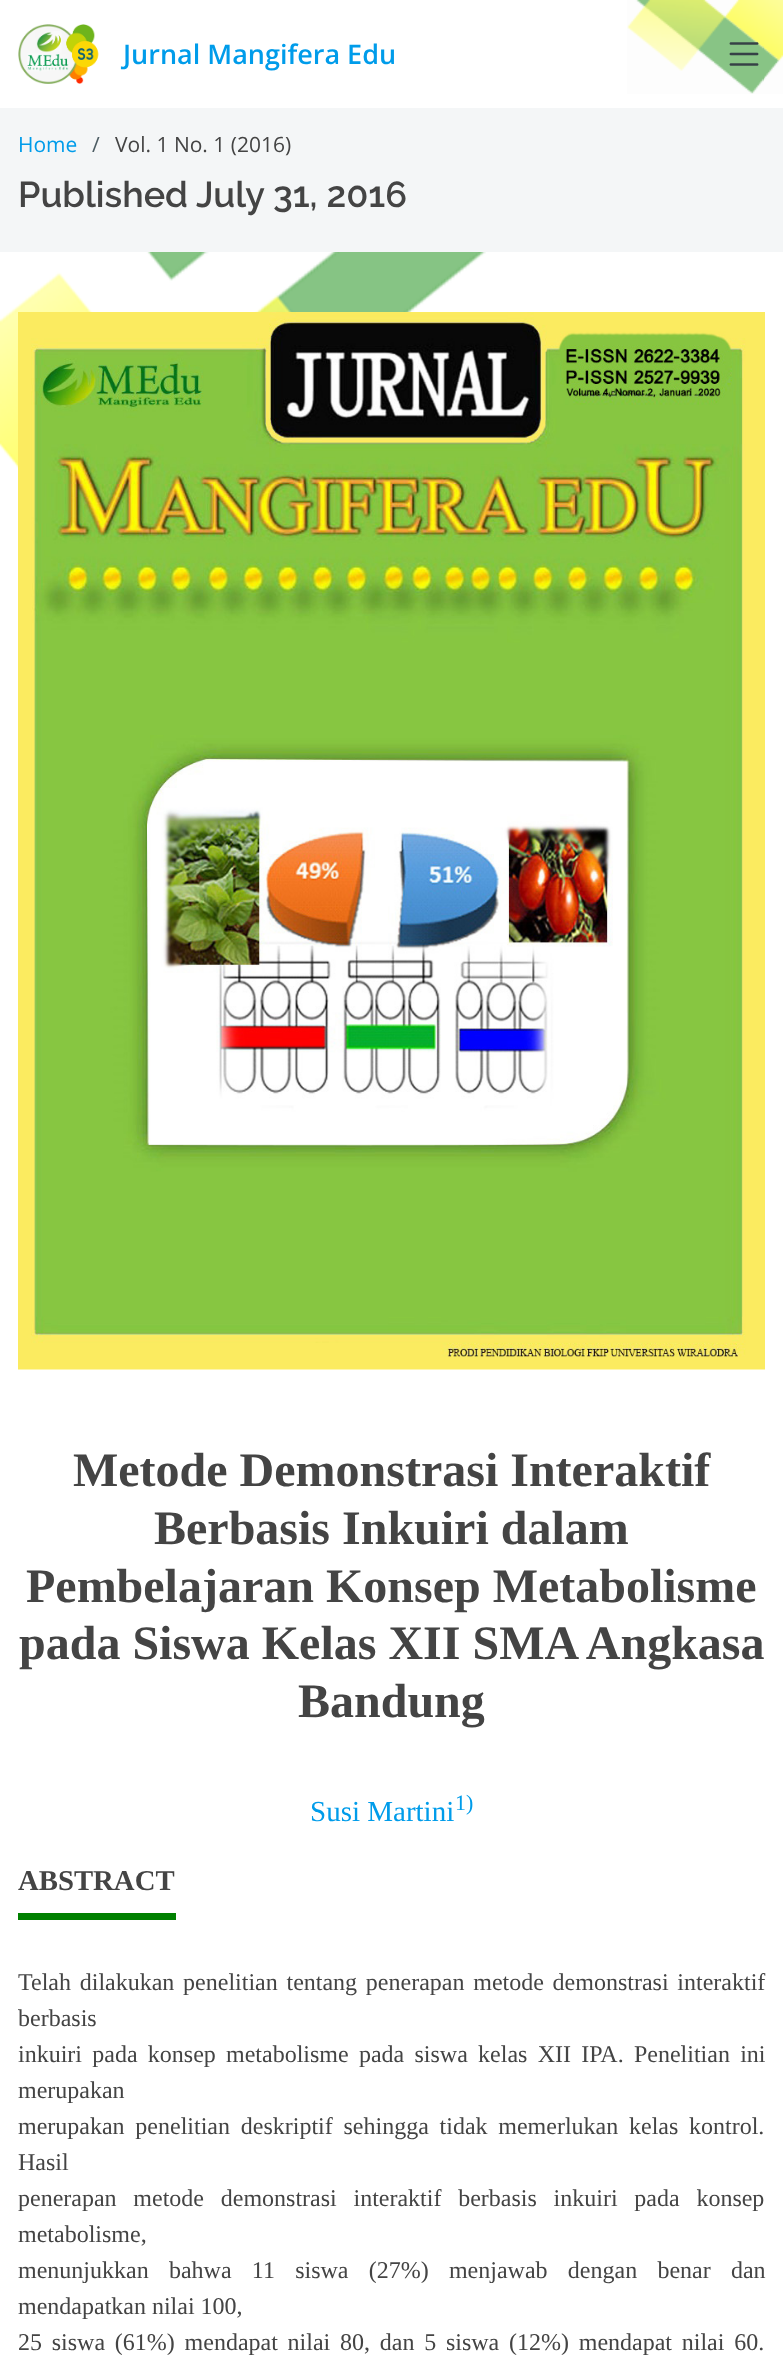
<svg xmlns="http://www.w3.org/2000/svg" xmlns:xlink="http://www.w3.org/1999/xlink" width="783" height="2374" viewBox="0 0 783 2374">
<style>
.cls-1{font:600 27px Open Sans;fill:#009cea}
.cls-2{font:21px Open Sans;fill:#009cea}
.cls-3{font:21px Open Sans;fill:#4c5c63}
.cls-4{font:21px Open Sans;fill:#444444}
.cls-5{font:600 36px Raleway;fill:#444444}
.cls-6{font:bold 48px Liberation Serif;fill:#444444}
.cls-7{font:29px Liberation Serif;fill:#009cea}
.cls-8{font:22px Liberation Serif;fill:#009cea}
.cls-9{font:bold 28.75px Liberation Serif;fill:#444444}
.cls-10{font:24px Liberation Serif;fill:#444444}
</style>
<rect width="100%" height="100%" fill="#ffffff"/>
<image xlink:href="image0.png" x="627" y="0" width="156" height="94"/>
<image xlink:href="image1.png" x="18" y="24" width="81" height="60"/>
<image xlink:href="image2.png" x="729" y="42" width="30" height="24"/>
<rect fill="#f4f6f7" x="0" y="108" width="783" height="144"/>
<image xlink:href="image3.png" x="0" y="252" width="486" height="310"/>
<image xlink:href="image4.png" x="18" y="312" width="747" height="1058"/>
<rect fill="#008000" x="18" y="1913" width="158" height="7"/>
<text class="cls-1" x="123" y="64">Jurnal Mangifera Edu</text>
<text class="cls-2" x="18" y="152">Home</text>
<text class="cls-3" x="92" y="152">/</text>
<text class="cls-4" x="115" y="152">Vol. 1 No. 1 (2016)</text>
<text class="cls-5" x="18" y="207">Published July 31, 2016</text>
<text class="cls-6" x="73" y="1486">Metode Demonstrasi Interaktif</text>
<text class="cls-6" x="154" y="1544">Berbasis Inkuiri dalam</text>
<text class="cls-6" x="26" y="1602">Pembelajaran Konsep Metabolisme</text>
<text class="cls-6" x="19" y="1659">pada Siswa Kelas XII SMA Angkasa</text>
<text class="cls-6" x="298" y="1717">Bandung</text>
<text class="cls-7" x="310" y="1821">Susi Martini</text>
<text class="cls-8" x="455" y="1810">1)</text>
<text class="cls-9" x="18" y="1890">ABSTRACT</text>
<text class="cls-10"><tspan x="18" y="1990" word-spacing="2.75">Telah dilakukan penelitian tentang penerapan metode demonstrasi interaktif</tspan><tspan x="18" y="2026">berbasis</tspan><tspan x="18" y="2062" word-spacing="4.25">inkuiri pada konsep metabolisme pada siswa kelas XII IPA. Penelitian ini</tspan><tspan x="18" y="2098">merupakan</tspan><tspan x="18" y="2134" word-spacing="4.75">merupakan penelitian deskriptif sehingga tidak memerlukan kelas kontrol.</tspan><tspan x="18" y="2170">Hasil</tspan><tspan x="18" y="2206" word-spacing="10.75">penerapan metode demonstrasi interaktif berbasis inkuiri pada konsep</tspan><tspan x="18" y="2242">metabolisme,</tspan><tspan x="18" y="2278" word-spacing="14.25">menunjukkan bahwa 11 siswa (27%) menjawab dengan benar dan</tspan><tspan x="18" y="2314">mendapatkan nilai 100,</tspan><tspan x="18" y="2350" word-spacing="3.75">25 siswa (61%) mendapat nilai 80, dan 5 siswa (12%) mendapat nilai 60.</tspan></text>
</svg>
